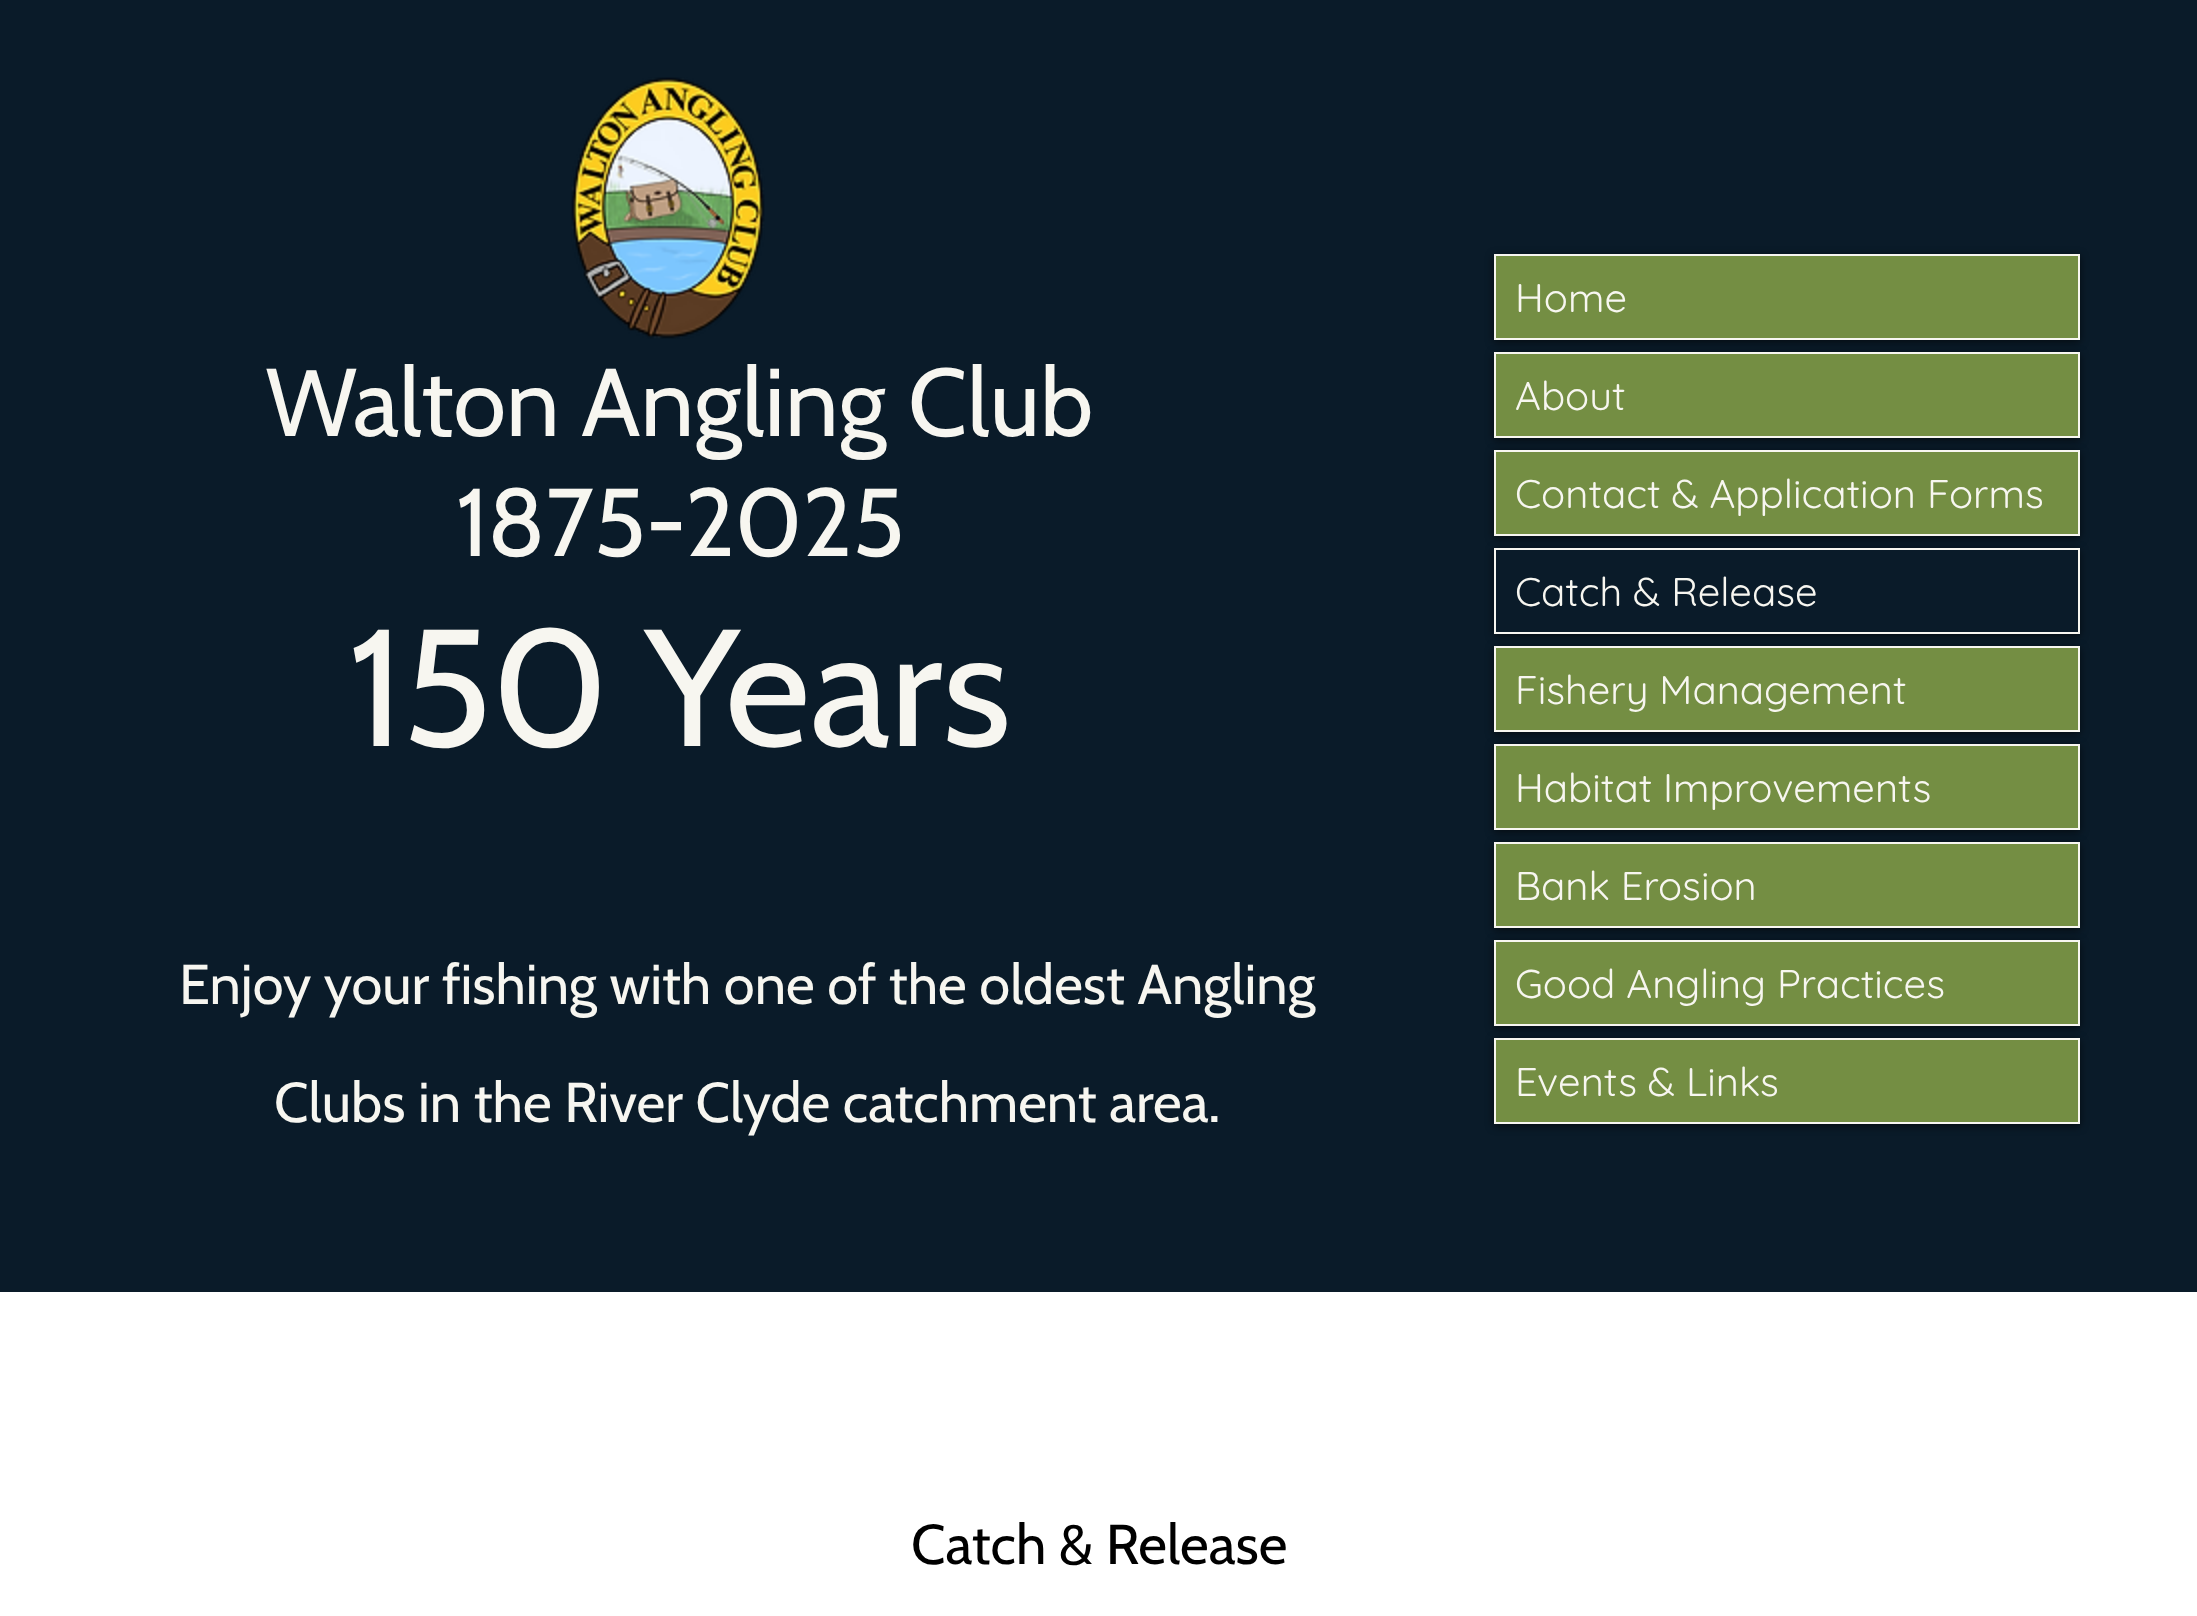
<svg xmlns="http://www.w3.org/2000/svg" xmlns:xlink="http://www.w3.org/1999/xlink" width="2197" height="1616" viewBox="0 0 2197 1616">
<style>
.cls-1{font:96px Cabin;fill:#f7f6f0}
.cls-2{font:166px Cabin;fill:#f7f6f0}
.cls-3{font:56px Cabin;fill:#f7f6f0}
.cls-4{font:40px Quicksand;fill:#f7f6f0}
.cls-5{font:56px Cabin;fill:#000000}
</style>
<defs>
<clipPath id="clip1"><path d="M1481 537H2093V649H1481ZM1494 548H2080V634H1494Z" clip-rule="evenodd"/></clipPath>
</defs>
<rect width="100%" height="100%" fill="#0a1b29"/>
<image xlink:href="image0.png" x="571" y="77" width="194" height="262"/>
<rect fill="#000000" fill-opacity="0.6" filter="blur(4px)" x="1494" y="256" width="586" height="86"/>
<rect fill="#748e43" stroke="#f7f6f0" stroke-width="2" x="1495" y="255" width="584" height="84"/>
<rect fill="#000000" fill-opacity="0.6" filter="blur(4px)" x="1494" y="354" width="586" height="86"/>
<rect fill="#748e43" stroke="#f7f6f0" stroke-width="2" x="1495" y="353" width="584" height="84"/>
<rect fill="#000000" fill-opacity="0.6" filter="blur(4px)" x="1494" y="452" width="586" height="86"/>
<rect fill="#748e43" stroke="#f7f6f0" stroke-width="2" x="1495" y="451" width="584" height="84"/>
<g clip-path="url(#clip1)">
<rect fill="#000000" fill-opacity="0.6" filter="blur(4px)" x="1494" y="550" width="586" height="86"/>
</g>
<rect fill="none" stroke="#f7f6f0" stroke-width="2" x="1495" y="549" width="584" height="84"/>
<rect fill="#000000" fill-opacity="0.6" filter="blur(4px)" x="1494" y="648" width="586" height="86"/>
<rect fill="#748e43" stroke="#f7f6f0" stroke-width="2" x="1495" y="647" width="584" height="84"/>
<rect fill="#000000" fill-opacity="0.6" filter="blur(4px)" x="1494" y="746" width="586" height="86"/>
<rect fill="#748e43" stroke="#f7f6f0" stroke-width="2" x="1495" y="745" width="584" height="84"/>
<rect fill="#000000" fill-opacity="0.6" filter="blur(4px)" x="1494" y="844" width="586" height="86"/>
<rect fill="#748e43" stroke="#f7f6f0" stroke-width="2" x="1495" y="843" width="584" height="84"/>
<rect fill="#000000" fill-opacity="0.6" filter="blur(4px)" x="1494" y="942" width="586" height="86"/>
<rect fill="#748e43" stroke="#f7f6f0" stroke-width="2" x="1495" y="941" width="584" height="84"/>
<rect fill="#000000" fill-opacity="0.6" filter="blur(4px)" x="1494" y="1040" width="586" height="86"/>
<rect fill="#748e43" stroke="#f7f6f0" stroke-width="2" x="1495" y="1039" width="584" height="84"/>
<rect fill="#ffffff" x="0" y="1292" width="2197" height="324"/>
<text class="cls-1" x="266" y="436">Walton Angling Club</text>
<text class="cls-1" x="456" y="556">1875-2025</text>
<text class="cls-2" x="348" y="746">150 Years</text>
<text class="cls-3" x="179" y="1004">Enjoy your fishing with one of the oldest Angling</text>
<text class="cls-3" x="274" y="1122">Clubs in the River Clyde catchment area.</text>
<text class="cls-4" x="1515" y="312">Home</text>
<text class="cls-4" x="1515" y="410">About</text>
<text class="cls-4" x="1515" y="508">Contact &amp; Application Forms</text>
<text class="cls-4" x="1515" y="606">Catch &amp; Release</text>
<text class="cls-4" x="1515" y="704">Fishery Management</text>
<text class="cls-4" x="1515" y="802">Habitat Improvements</text>
<text class="cls-4" x="1515" y="900">Bank Erosion</text>
<text class="cls-4" x="1515" y="998">Good Angling Practices</text>
<text class="cls-4" x="1515" y="1096">Events &amp; Links</text>
<text class="cls-5" x="911" y="1564">Catch &amp; Release</text>
</svg>
